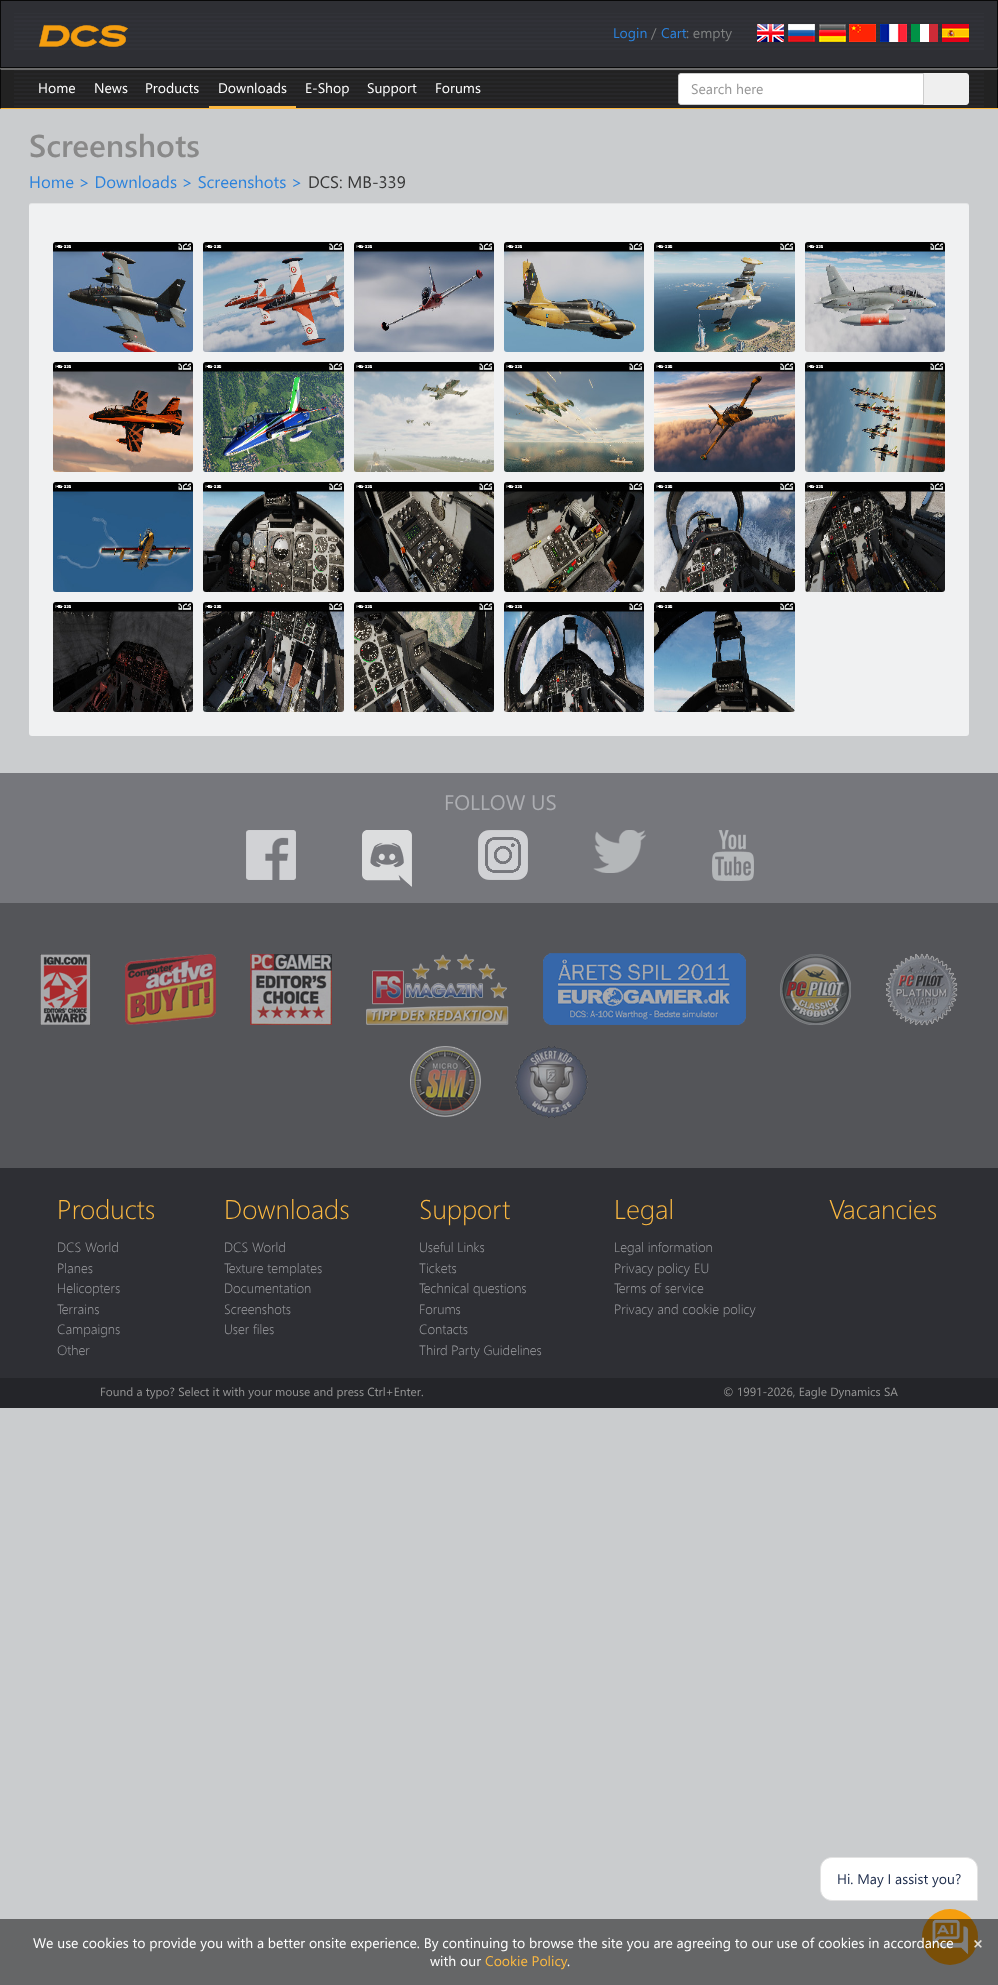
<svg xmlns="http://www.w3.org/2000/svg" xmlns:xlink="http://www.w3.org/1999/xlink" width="998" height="1985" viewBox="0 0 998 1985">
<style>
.cls-1{font:14px Segoe UI;fill:#2b82dc}
.cls-2{font:14px Segoe UI;fill:#7f8180}
.cls-3{font:14px Segoe UI;fill:#ffffff}
.cls-4{font:14px Segoe UI;fill:#969696}
.cls-5{font:600 31.5px Segoe UI;fill:#898989}
.cls-6{font:16.75px Segoe UI;fill:#2b82dc}
.cls-7{font:16.75px Segoe UI;fill:#363636}
.cls-8{font:21px Segoe UI;fill:#adaeb2}
.cls-9{font:300 27px Segoe UI;fill:#fcb941}
.cls-10{font:300 13.5px Segoe UI;fill:#a0a1a5}
.cls-11{font:11.9px Segoe UI;fill:#969696}
.cls-12{font:14px Segoe UI;fill:#1b2a4a}
.cls-13{font:14px Segoe UI;fill:#fcb941}
.cls-14{font:bold 16.75px Segoe UI;fill:#e2ded7}
</style>
<rect width="100%" height="100%" fill="#caccce"/>
<rect fill="#2e2f34" stroke="#080808" x="0.5" y="0.5" width="997" height="67"/>
<image xlink:href="image0.png" x="14" y="13" width="970" height="37"/>
<image xlink:href="image1.png" x="39" y="25" width="89" height="22"/>
<image xlink:href="image2.png" x="757" y="24" width="27" height="18"/>
<image xlink:href="image3.png" x="788" y="24" width="27" height="18"/>
<image xlink:href="image4.png" x="819" y="24" width="27" height="18"/>
<image xlink:href="image5.png" x="849" y="24" width="27" height="18"/>
<image xlink:href="image6.png" x="880" y="24" width="27" height="18"/>
<image xlink:href="image7.png" x="911" y="24" width="27" height="18"/>
<image xlink:href="image8.png" x="942" y="24" width="27" height="18"/>
<rect fill="#222222" x="1" y="70" width="996" height="38"/>
<path fill="#6a6a6a" d="M0 68H998L997 70H1Z"/>
<path fill="#080808" d="M998 68V109L997 108V70Z"/>
<rect fill="#fbb840" x="0" y="108" width="998" height="1"/>
<path fill="#080808" d="M0 109V68L1 70V108Z"/>
<image xlink:href="image9.png" x="14" y="70" width="970" height="37"/>
<rect fill="#fbb840" x="209" y="106" width="87" height="2"/>
<path fill="#efefef" d="M923 73H966C967.5 73 969 74.5 969 76V102C969 103.5 967.5 105 966 105H923Z"/>
<path fill="#ffffff" stroke="#cccccc" d="M681 73.5H923.5V104.5H681C679.5 104.5 678.5 103.5 678.5 102V76C678.5 74.5 679.5 73.5 681 73.5Z"/>
<rect fill="#f0f1f2" x="29" y="203" width="940" height="533" rx="3"/>
<path fill="#000000" fill-opacity="0.05" d="M32 204H966C968 204 969 205 969 207C969 205 968 203 966 203H32C30 203 29 205 29 207C29 205 30 204 32 204Z"/>
<image xlink:href="image10.png" x="53" y="242" width="140" height="110"/>
<image xlink:href="image11.png" x="203" y="242" width="141" height="110"/>
<image xlink:href="image12.png" x="354" y="242" width="140" height="110"/>
<image xlink:href="image13.png" x="504" y="242" width="140" height="110"/>
<image xlink:href="image14.png" x="654" y="242" width="141" height="110"/>
<image xlink:href="image15.png" x="805" y="242" width="140" height="110"/>
<image xlink:href="image16.png" x="53" y="362" width="140" height="110"/>
<image xlink:href="image17.png" x="203" y="362" width="141" height="110"/>
<image xlink:href="image18.png" x="354" y="362" width="140" height="110"/>
<image xlink:href="image19.png" x="504" y="362" width="140" height="110"/>
<image xlink:href="image20.png" x="654" y="362" width="141" height="110"/>
<image xlink:href="image21.png" x="805" y="362" width="140" height="110"/>
<image xlink:href="image22.png" x="53" y="482" width="140" height="110"/>
<image xlink:href="image23.png" x="203" y="482" width="141" height="110"/>
<image xlink:href="image24.png" x="354" y="482" width="140" height="110"/>
<image xlink:href="image25.png" x="504" y="482" width="140" height="110"/>
<image xlink:href="image26.png" x="654" y="482" width="141" height="110"/>
<image xlink:href="image27.png" x="805" y="482" width="140" height="110"/>
<image xlink:href="image28.png" x="53" y="602" width="140" height="110"/>
<image xlink:href="image29.png" x="203" y="602" width="141" height="110"/>
<image xlink:href="image30.png" x="354" y="602" width="140" height="110"/>
<image xlink:href="image31.png" x="504" y="602" width="140" height="110"/>
<image xlink:href="image32.png" x="654" y="602" width="141" height="110"/>
<rect fill="#76777c" x="0" y="773" width="998" height="130"/>
<image xlink:href="image33.png" x="246" y="830" width="50" height="50"/>
<image xlink:href="image34.png" x="362" y="830" width="50" height="57"/>
<image xlink:href="image35.png" x="478" y="830" width="50" height="50"/>
<image xlink:href="image36.png" x="593" y="830" width="53" height="43"/>
<image xlink:href="image37.png" x="712" y="830" width="42" height="51"/>
<rect fill="#545559" x="0" y="903" width="998" height="265"/>
<image xlink:href="image38.png" x="40" y="954" width="51" height="71"/>
<image xlink:href="image39.png" x="125" y="954" width="91" height="71"/>
<image xlink:href="image40.png" x="250" y="954" width="82" height="71"/>
<image xlink:href="image41.png" x="366" y="954" width="143" height="71"/>
<image xlink:href="image42.png" x="543" y="953" width="203" height="72"/>
<image xlink:href="image43.png" x="780" y="954" width="71" height="71"/>
<image xlink:href="image44.png" x="886" y="953" width="72" height="73"/>
<image xlink:href="image45.png" x="410" y="1046" width="71" height="71"/>
<image xlink:href="image46.png" x="515" y="1046" width="73" height="72"/>
<rect fill="#2e2f34" x="0" y="1168" width="998" height="210"/>
<rect fill="#242529" x="0" y="1378" width="998" height="30"/>
<path fill="#ffffff" stroke="#e2e2e2" d="M832 1857.5H966C972.5 1857.5 977.5 1862.5 977.5 1869V1900.5H832C825.5 1900.5 820.5 1895.5 820.5 1889V1869C820.5 1862.5 825.5 1857.5 832 1857.5Z"/>
<circle fill="#f59e0f" cx="950" cy="1937" r="28"/>
<image xlink:href="image47.png" x="932" y="1919" width="37" height="36"/>
<rect fill="#000000" fill-opacity="0.5" x="0" y="1919" width="998" height="66"/>
<text class="cls-1" x="613" y="38">Login</text>
<text class="cls-2" x="651" y="38">/</text>
<text class="cls-1" x="661" y="38">Cart</text>
<text class="cls-2" x="686" y="38">: empty</text>
<text class="cls-3" x="38" y="93">Home</text>
<text class="cls-3" x="94" y="93">News</text>
<text class="cls-3" x="145" y="93">Products</text>
<text class="cls-3" x="218" y="93">Downloads</text>
<text class="cls-3" x="305" y="93">E-Shop</text>
<text class="cls-3" x="367" y="93">Support</text>
<text class="cls-3" x="435" y="93">Forums</text>
<text class="cls-4" x="691" y="94">Search here</text>
<text class="cls-5" x="29" y="157">Screenshots</text>
<text class="cls-6" x="29" y="188">Home &gt; Downloads &gt; Screenshots &gt;</text>
<text class="cls-7" x="308" y="188">DCS: MB-339</text>
<text class="cls-8" x="444" y="810">FOLLOW US</text>
<text class="cls-9" x="57" y="1219">Products</text>
<text class="cls-10"><tspan x="57" y="1252">DCS World</tspan><tspan x="57" y="1273">Planes</tspan><tspan x="57" y="1293">Helicopters</tspan><tspan x="57" y="1314">Terrains</tspan><tspan x="57" y="1334">Campaigns</tspan><tspan x="57" y="1355">Other</tspan></text>
<text class="cls-9" x="224" y="1219">Downloads</text>
<text class="cls-10"><tspan x="224" y="1252">DCS World</tspan><tspan x="224" y="1273">Texture templates</tspan><tspan x="224" y="1293">Documentation</tspan><tspan x="224" y="1314">Screenshots</tspan><tspan x="224" y="1334">User files</tspan></text>
<text class="cls-9" x="419" y="1219">Support</text>
<text class="cls-10"><tspan x="419" y="1252">Useful Links</tspan><tspan x="419" y="1273">Tickets</tspan><tspan x="419" y="1293">Technical questions</tspan><tspan x="419" y="1314">Forums</tspan><tspan x="419" y="1334">Contacts</tspan><tspan x="419" y="1355">Third Party Guidelines</tspan></text>
<text class="cls-9" x="614" y="1219">Legal</text>
<text class="cls-10"><tspan x="614" y="1252">Legal information</tspan><tspan x="614" y="1273">Privacy policy EU</tspan><tspan x="614" y="1293">Terms of service</tspan><tspan x="614" y="1314">Privacy and cookie policy</tspan></text>
<text class="cls-9" x="829" y="1219">Vacancies</text>
<text class="cls-11" x="100" y="1396">Found a typo? Select it with your mouse and press Ctrl+Enter.</text>
<text class="cls-11" x="723" y="1396">© 1991-2026, Eagle Dynamics SA</text>
<text class="cls-12" x="837" y="1884">Hi. May I assist you?</text>
<text class="cls-3" x="33" y="1948">We use cookies to provide you with a better onsite experience. By continuing to browse the site you are agreeing to our use of cookies in accordance</text>
<text class="cls-3" x="430" y="1966">with our</text>
<text class="cls-13" x="485" y="1966">Cookie Policy</text>
<text class="cls-3" x="567" y="1966">.</text>
<text class="cls-14" x="972" y="1949">×</text>
</svg>
